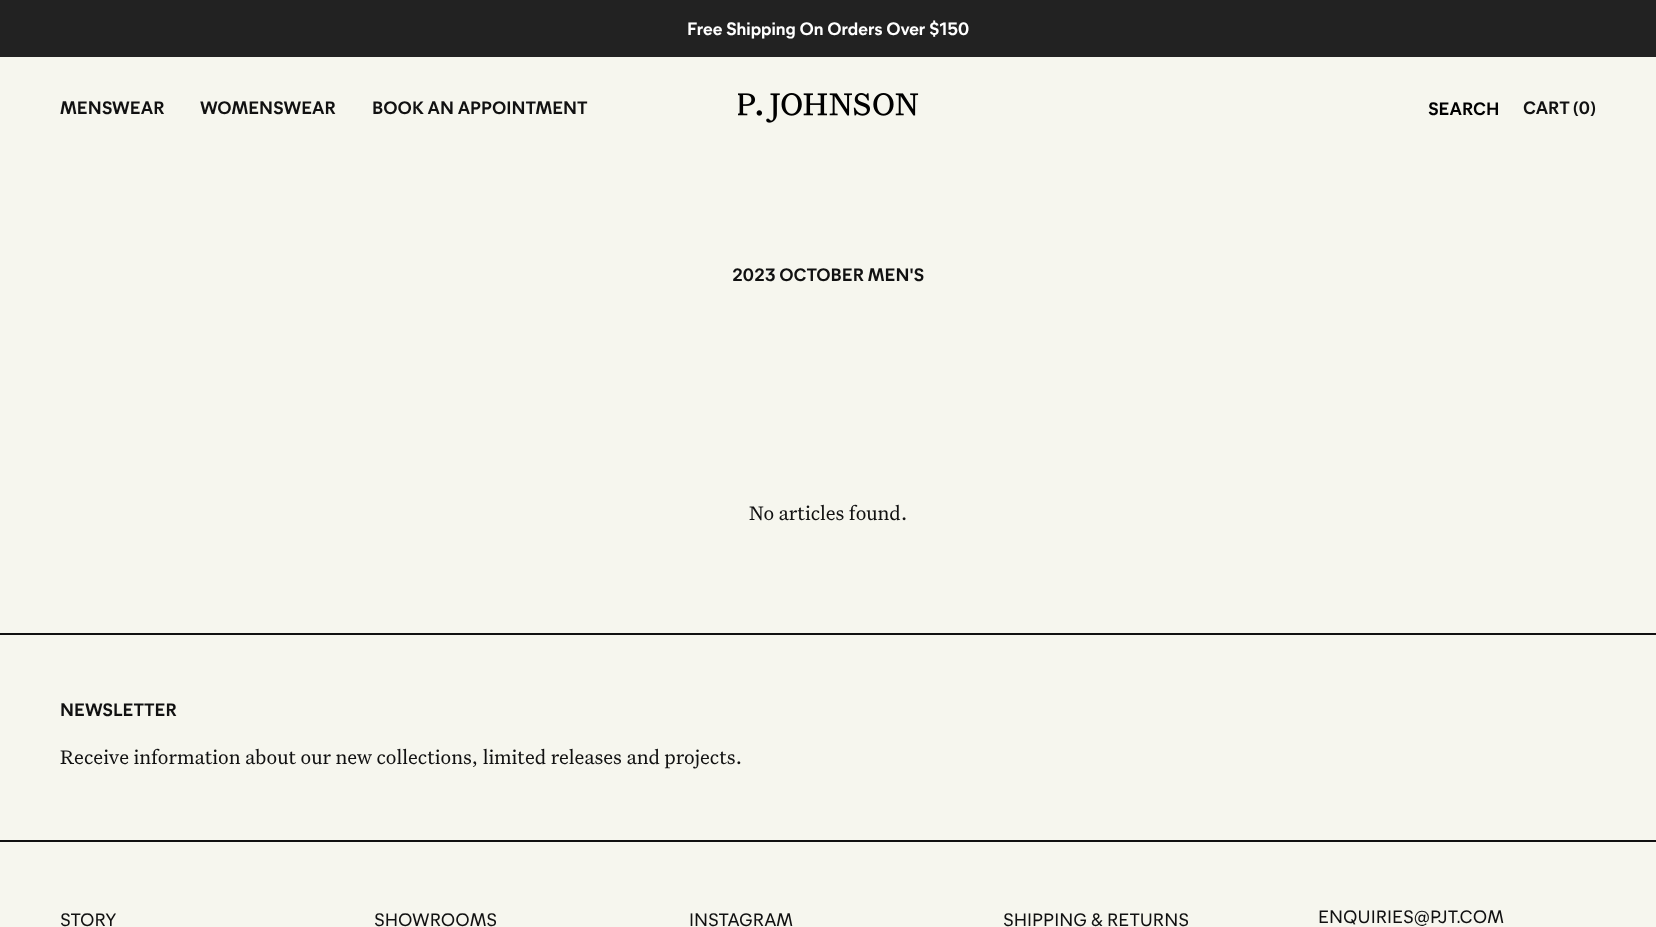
<svg xmlns="http://www.w3.org/2000/svg" xmlns:xlink="http://www.w3.org/1999/xlink" width="1656" height="927" viewBox="0 0 1656 927">
<style>
.cls-1{font:bold 18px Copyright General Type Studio;fill:#ffffff}
.cls-2{font:bold 18px Copyright General Type Studio;fill:#111111}
.cls-3{font:bold 18px Copyright General Type Studio;fill:#000000}
.cls-4{font:21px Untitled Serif;fill:#111111}
.cls-5{font:500 18px Copyright General Type Studio;fill:#111111}
</style>
<rect width="100%" height="100%" fill="#f6f6ee"/>
<rect fill="#222222" x="0" y="0" width="1656" height="57"/>
<image xlink:href="image0.png" x="738" y="93" width="181" height="30"/>
<rect fill="#111111" x="0" y="633" width="1656" height="2"/>
<rect fill="#111111" x="0" y="840" width="1656" height="2"/>
<text class="cls-1" x="687" y="35">Free Shipping On Orders Over $150</text>
<text class="cls-2" x="60" y="114">MENSWEAR</text>
<text class="cls-2" x="200" y="114">WOMENSWEAR</text>
<text class="cls-2" x="372" y="114">BOOK AN APPOINTMENT</text>
<text class="cls-3" x="1428" y="115">SEARCH</text>
<text class="cls-2" x="1523" y="114">CART</text>
<text class="cls-2" x="1573" y="114">(0)</text>
<text class="cls-2" x="732" y="281">2023 OCTOBER MEN'S</text>
<text class="cls-4" x="749" y="520">No articles found.</text>
<text class="cls-2" x="60" y="716">NEWSLETTER</text>
<text class="cls-4" x="60" y="764">Receive information about our new collections, limited releases and projects.</text>
<text class="cls-5" x="60" y="926">STORY</text>
<text class="cls-5" x="374" y="926">SHOWROOMS</text>
<text class="cls-5" x="689" y="926">INSTAGRAM</text>
<text class="cls-5" x="1003" y="926">SHIPPING &amp; RETURNS</text>
<text class="cls-5" x="1318" y="923">ENQUIRIES@PJT.COM</text>
</svg>
